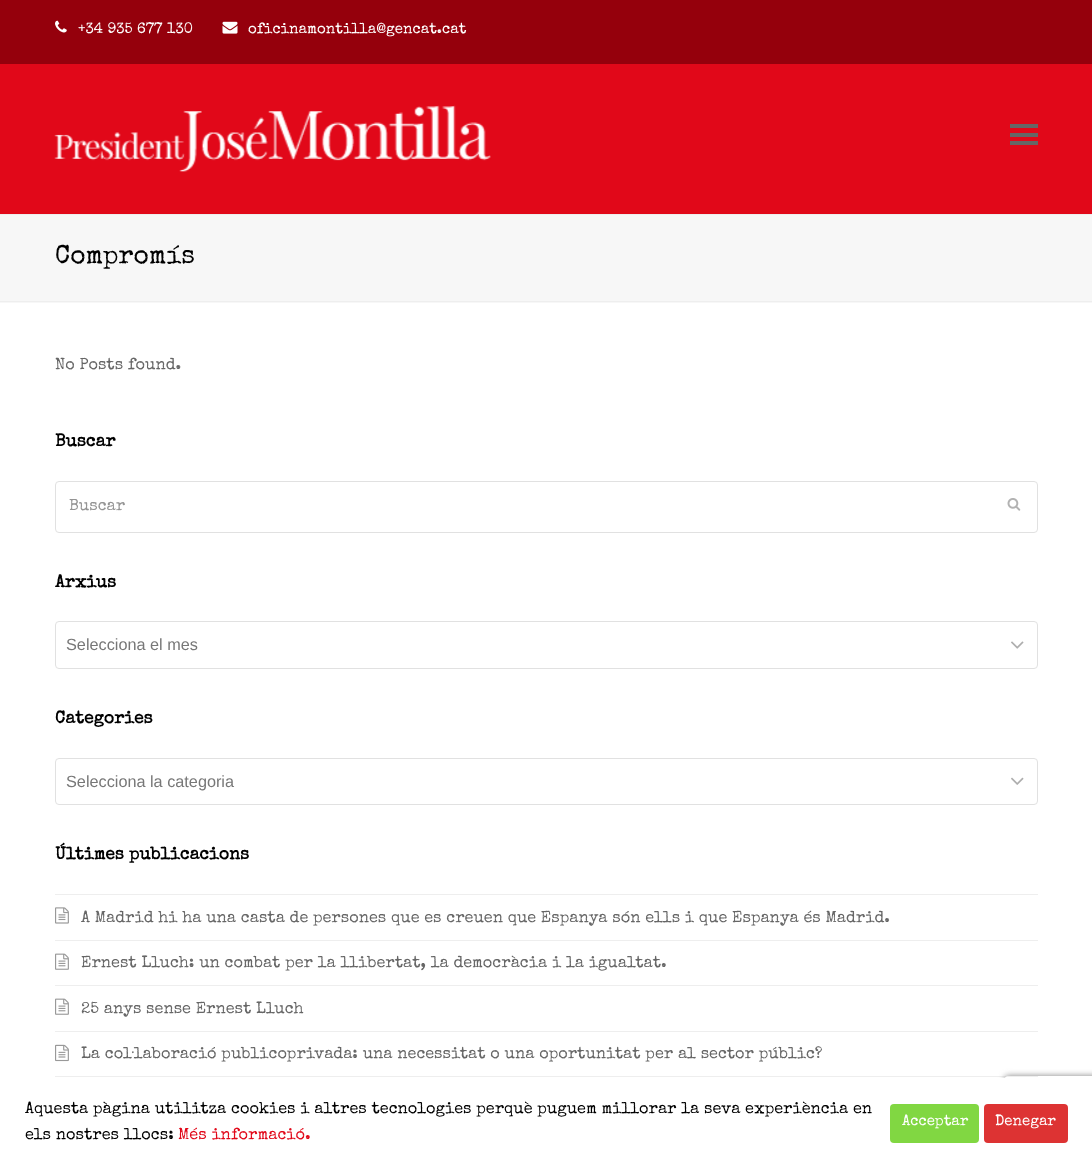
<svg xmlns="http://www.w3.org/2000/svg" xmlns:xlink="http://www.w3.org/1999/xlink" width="1092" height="1168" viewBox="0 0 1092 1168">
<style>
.cls-1{font:15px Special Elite;fill:#ffffff}
.cls-2{font:26.25px Special Elite;fill:#000000}
.cls-3{font:16.25px Special Elite;fill:#666666}
.cls-4{font:bold 17.5px Special Elite;fill:#000000}
.cls-5{font:16.25px Special Elite;fill:#949494}
.cls-6{font:16.25px Liberation Sans;fill:#777777}
.cls-7{font:16.25px Special Elite;fill:#000000}
.cls-8{font:16.25px Special Elite;fill:#e10819}
</style>
<defs>
<clipPath id="clip1"><path d="M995 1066H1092V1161H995ZM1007.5 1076H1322.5C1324 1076 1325 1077 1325 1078.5V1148.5C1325 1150 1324 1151 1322.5 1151H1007.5C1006 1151 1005 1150 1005 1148.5V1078.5C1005 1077 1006 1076 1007.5 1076Z" clip-rule="evenodd"/></clipPath>
<clipPath id="clip2"><rect x="69" y="499" width="930" height="16"/></clipPath>
</defs>
<rect width="100%" height="100%" fill="#ffffff"/>
<rect fill="#95000c" x="0" y="0" width="1092" height="64"/>
<image xlink:href="image0.png" x="55" y="20" width="12" height="13"/>
<image xlink:href="image1.png" x="222" y="21" width="16" height="13"/>
<rect fill="#e10819" x="0" y="64" width="1092" height="150"/>
<image xlink:href="image2.png" x="54" y="105" width="437" height="67"/>
<rect fill="#666666" x="1010" y="133" width="28" height="4"/>
<rect fill="#666666" x="1010" y="124" width="28" height="4"/>
<rect fill="#666666" x="1010" y="141" width="28" height="4"/>
<rect fill="#f7f7f7" x="0" y="215" width="1092" height="88"/>
<rect fill="#eeeeee" x="0" y="214" width="1092" height="1"/>
<rect fill="#eeeeee" x="0" y="301" width="1092" height="1"/>
<rect fill="none" stroke="#e1e1e1" x="55.5" y="481.5" width="982" height="51" rx="3.5"/>
<image xlink:href="image3.png" x="1007" y="498" width="14" height="13"/>
<rect fill="none" stroke="#e1e1e1" x="55.5" y="621.5" width="982" height="47" rx="3.5"/>
<image xlink:href="image4.png" x="1011" y="641" width="13" height="8"/>
<rect fill="none" stroke="#e1e1e1" x="55.5" y="758.5" width="982" height="46" rx="3.5"/>
<image xlink:href="image5.png" x="1011" y="777" width="13" height="8"/>
<rect fill="#eeeeee" x="55" y="894" width="983" height="1"/>
<rect fill="#eeeeee" x="55" y="940" width="983" height="1"/>
<image xlink:href="image6.png" x="55" y="907" width="14" height="17"/>
<rect fill="#eeeeee" x="55" y="985" width="983" height="1"/>
<image xlink:href="image7.png" x="55" y="953" width="14" height="17"/>
<rect fill="#eeeeee" x="55" y="1031" width="983" height="1"/>
<image xlink:href="image7.png" x="55" y="998" width="14" height="17"/>
<rect fill="#eeeeee" x="55" y="1076" width="983" height="1"/>
<image xlink:href="image8.png" x="55" y="1044" width="14" height="18"/>
<g clip-path="url(#clip1)">
<rect fill="#808080" filter="blur(3px)" x="1005" y="1076" width="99" height="75" rx="2.5"/>
</g>
<rect fill="#ffffff" x="0" y="1078" width="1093" height="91" rx="4"/>
<rect fill="#81d742" x="890" y="1104" width="89" height="39" rx="4"/>
<rect fill="#dd3333" x="984" y="1104" width="84" height="39" rx="4"/>
<text class="cls-1" x="78" y="33">+34 935 677 130</text>
<text class="cls-1" x="248" y="33">oficinamontilla@gencat.cat</text>
<text class="cls-2" x="55" y="263">Compromís</text>
<text class="cls-3" x="55" y="369">No Posts found.</text>
<text class="cls-4" x="55" y="446">Buscar</text>
<g clip-path="url(#clip2)">
<text class="cls-5" x="69" y="510">Buscar</text>
</g>
<text class="cls-4" x="55" y="587">Arxius</text>
<text class="cls-6" x="66" y="650">Selecciona el mes</text>
<text class="cls-4" x="55" y="723">Categories</text>
<text class="cls-6" x="66" y="787">Selecciona la categoria</text>
<text class="cls-4" x="55" y="859">Últimes publicacions</text>
<text class="cls-3" x="81" y="922">A Madrid hi ha una casta de persones que es creuen que Espanya són ells i que Espanya és Madrid.</text>
<text class="cls-3" x="81" y="967">Ernest Lluch: un combat per la llibertat, la democràcia i la igualtat.</text>
<text class="cls-3" x="81" y="1013">25 anys sense Ernest Lluch</text>
<text class="cls-3" x="81" y="1058">La col·laboració publicoprivada: una necessitat o una oportunitat per al sector públic?</text>
<text class="cls-7"><tspan x="25" y="1113">Aquesta pàgina utilitza cookies i altres tecnologies perquè puguem millorar la seva experiència en</tspan><tspan x="25" y="1139">els nostres llocs:</tspan></text>
<text class="cls-8" x="178" y="1139">Més informació.</text>
<text class="cls-1" x="902" y="1125">Acceptar</text>
<text class="cls-1" x="995" y="1125">Denegar</text>
</svg>
